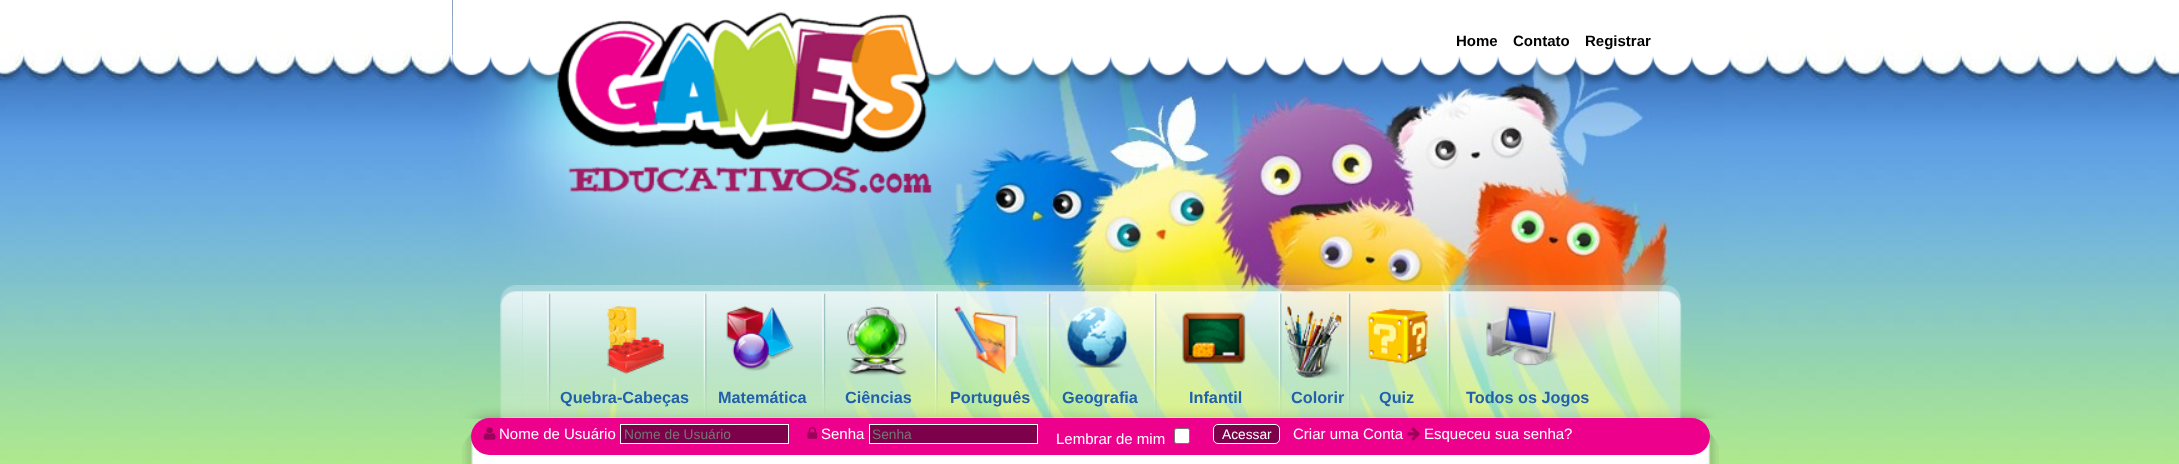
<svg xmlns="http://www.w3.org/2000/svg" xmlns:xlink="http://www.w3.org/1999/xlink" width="2179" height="464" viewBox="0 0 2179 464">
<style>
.cls-1{font:bold 15px Liberation Sans;fill:#000000}
.cls-2{font:bold 16.25px Liberation Sans;fill:#2161ab}
.cls-3{font:15px Liberation Sans;fill:#ffffff}
.cls-4{font:13.75px Liberation Sans;fill:#757575}
.cls-5{font:13.75px Liberation Sans;fill:#ffffff}
</style>
<rect width="100%" height="100%" fill="#ffffff"/>
<image xlink:href="image0.png" x="0" y="0" width="2179" height="464"/>
<image xlink:href="image4.png" x="457" y="86" width="1267" height="333"/>
<image xlink:href="image2.png" x="452" y="0" width="1278" height="87"/>
<rect fill="#ffffff" x="453" y="0" width="1277" height="55"/>
<image xlink:href="image3.png" x="452" y="55" width="1278" height="30"/>
<image xlink:href="image1.png" x="557" y="12" width="375" height="182"/>
<image xlink:href="image5.png" x="500" y="285" width="23" height="133"/>
<image xlink:href="image6.png" x="522" y="285" width="1137" height="133"/>
<image xlink:href="image7.png" x="547" y="293" width="4" height="120"/>
<image xlink:href="image8.png" x="606" y="306" width="60" height="68"/>
<image xlink:href="image9.png" x="703" y="293" width="4" height="125"/>
<image xlink:href="image10.png" x="726" y="306" width="68" height="65"/>
<image xlink:href="image11.png" x="822" y="293" width="4" height="120"/>
<image xlink:href="image12.png" x="847" y="306" width="61" height="70"/>
<image xlink:href="image13.png" x="935" y="293" width="3" height="125"/>
<image xlink:href="image14.png" x="953" y="306" width="65" height="69"/>
<image xlink:href="image15.png" x="1047" y="293" width="4" height="125"/>
<image xlink:href="image16.png" x="1067" y="306" width="60" height="62"/>
<image xlink:href="image17.png" x="1153" y="293" width="4" height="125"/>
<image xlink:href="image18.png" x="1182" y="312" width="64" height="52"/>
<image xlink:href="image19.png" x="1278" y="293" width="4" height="125"/>
<image xlink:href="image20.png" x="1285" y="306" width="57" height="73"/>
<image xlink:href="image21.png" x="1347" y="293" width="4" height="120"/>
<image xlink:href="image22.png" x="1367" y="308" width="61" height="56"/>
<image xlink:href="image23.png" x="1447" y="293" width="4" height="125"/>
<image xlink:href="image24.png" x="1486" y="306" width="72" height="60"/>
<image xlink:href="image25.png" x="1658" y="285" width="24" height="133"/>
<image xlink:href="image26.png" x="462" y="417" width="1257" height="47"/>
<rect fill="#ed008c" x="471" y="418" width="1239" height="37" rx="18.5"/>
<image xlink:href="image27.png" x="483" y="427" width="13" height="13"/>
<rect fill="#7d004a" stroke="#ffffff" x="620.5" y="424.5" width="168" height="19"/>
<image xlink:href="image28.png" x="807" y="427" width="11" height="12"/>
<rect fill="#7d004a" stroke="#ffffff" x="869.5" y="424.5" width="168" height="19"/>
<rect fill="#ffffff" stroke="#767676" x="1174.5" y="428.5" width="15" height="15" rx="2"/>
<rect fill="#7d004b" stroke="#ffffff" x="1213.5" y="424.5" width="66" height="19" rx="4.5"/>
<image xlink:href="image29.png" x="1407" y="427" width="13" height="14"/>
<text class="cls-1" x="1456" y="46">Home</text>
<text class="cls-1" x="1513" y="46">Contato</text>
<text class="cls-1" x="1585" y="46">Registrar</text>
<text class="cls-2" x="560" y="403">Quebra-Cabeças</text>
<text class="cls-2" x="718" y="403">Matemática</text>
<text class="cls-2" x="845" y="403">Ciências</text>
<text class="cls-2" x="950" y="403">Português</text>
<text class="cls-2" x="1062" y="403">Geografia</text>
<text class="cls-2" x="1189" y="403">Infantil</text>
<text class="cls-2" x="1291" y="403">Colorir</text>
<text class="cls-2" x="1379" y="403">Quiz</text>
<text class="cls-2" x="1466" y="403">Todos os Jogos</text>
<text class="cls-3" x="499" y="439">Nome de Usuário</text>
<text class="cls-4" x="624" y="439">Nome de Usuário</text>
<text class="cls-3" x="821" y="439">Senha</text>
<text class="cls-4" x="872" y="439">Senha</text>
<text class="cls-3" x="1056" y="444">Lembrar de mim</text>
<text class="cls-5" x="1222" y="439">Acessar</text>
<text class="cls-3" x="1293" y="439">Criar uma Conta</text>
<text class="cls-3" x="1424" y="439">Esqueceu sua senha?</text>
</svg>
